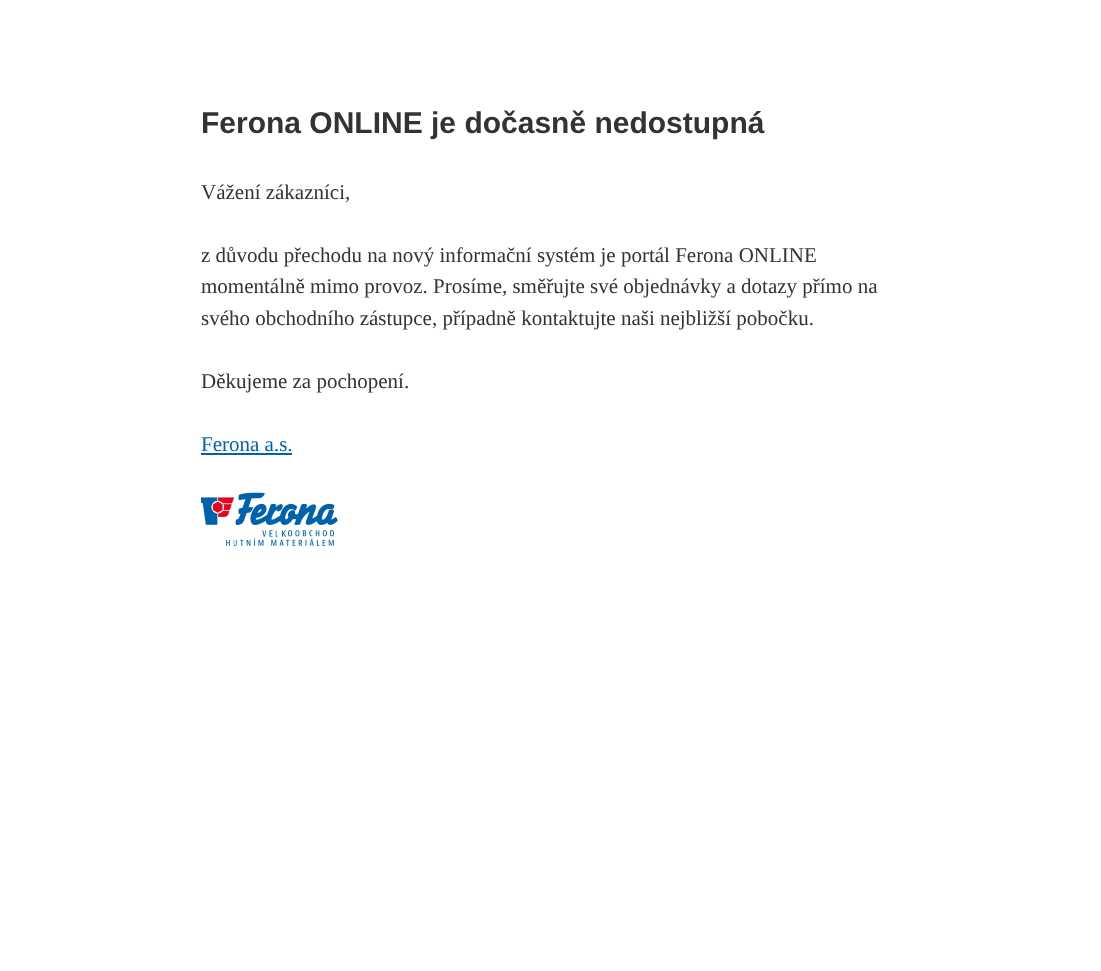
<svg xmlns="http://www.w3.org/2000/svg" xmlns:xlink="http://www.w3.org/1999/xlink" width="1101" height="971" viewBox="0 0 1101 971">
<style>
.cls-1{font:bold 30px Liberation Sans;fill:#333333}
.cls-2{font:21px Liberation Serif;fill:#333333}
.cls-3{font:21px Liberation Serif;fill:#0061ac}
</style>
<rect width="100%" height="100%" fill="#ffffff"/>
<rect fill="#0061ac" x="201" y="453" width="91" height="2"/>
<image xlink:href="image0.png" x="201" y="492" width="137" height="54"/>
<text class="cls-1" x="201" y="133">Ferona ONLINE je dočasně nedostupná</text>
<text class="cls-2" x="201" y="199">Vážení zákazníci,</text>
<text class="cls-2"><tspan x="201" y="262">z důvodu přechodu na nový informační systém je portál Ferona ONLINE</tspan><tspan x="201" y="293">momentálně mimo provoz. Prosíme, směřujte své objednávky a dotazy přímo na</tspan><tspan x="201" y="325">svého obchodního zástupce, případně kontaktujte naši nejbližší pobočku.</tspan></text>
<text class="cls-2" x="201" y="388">Děkujeme za pochopení.</text>
<text class="cls-3" x="201" y="451">Ferona a.s.</text>
</svg>
